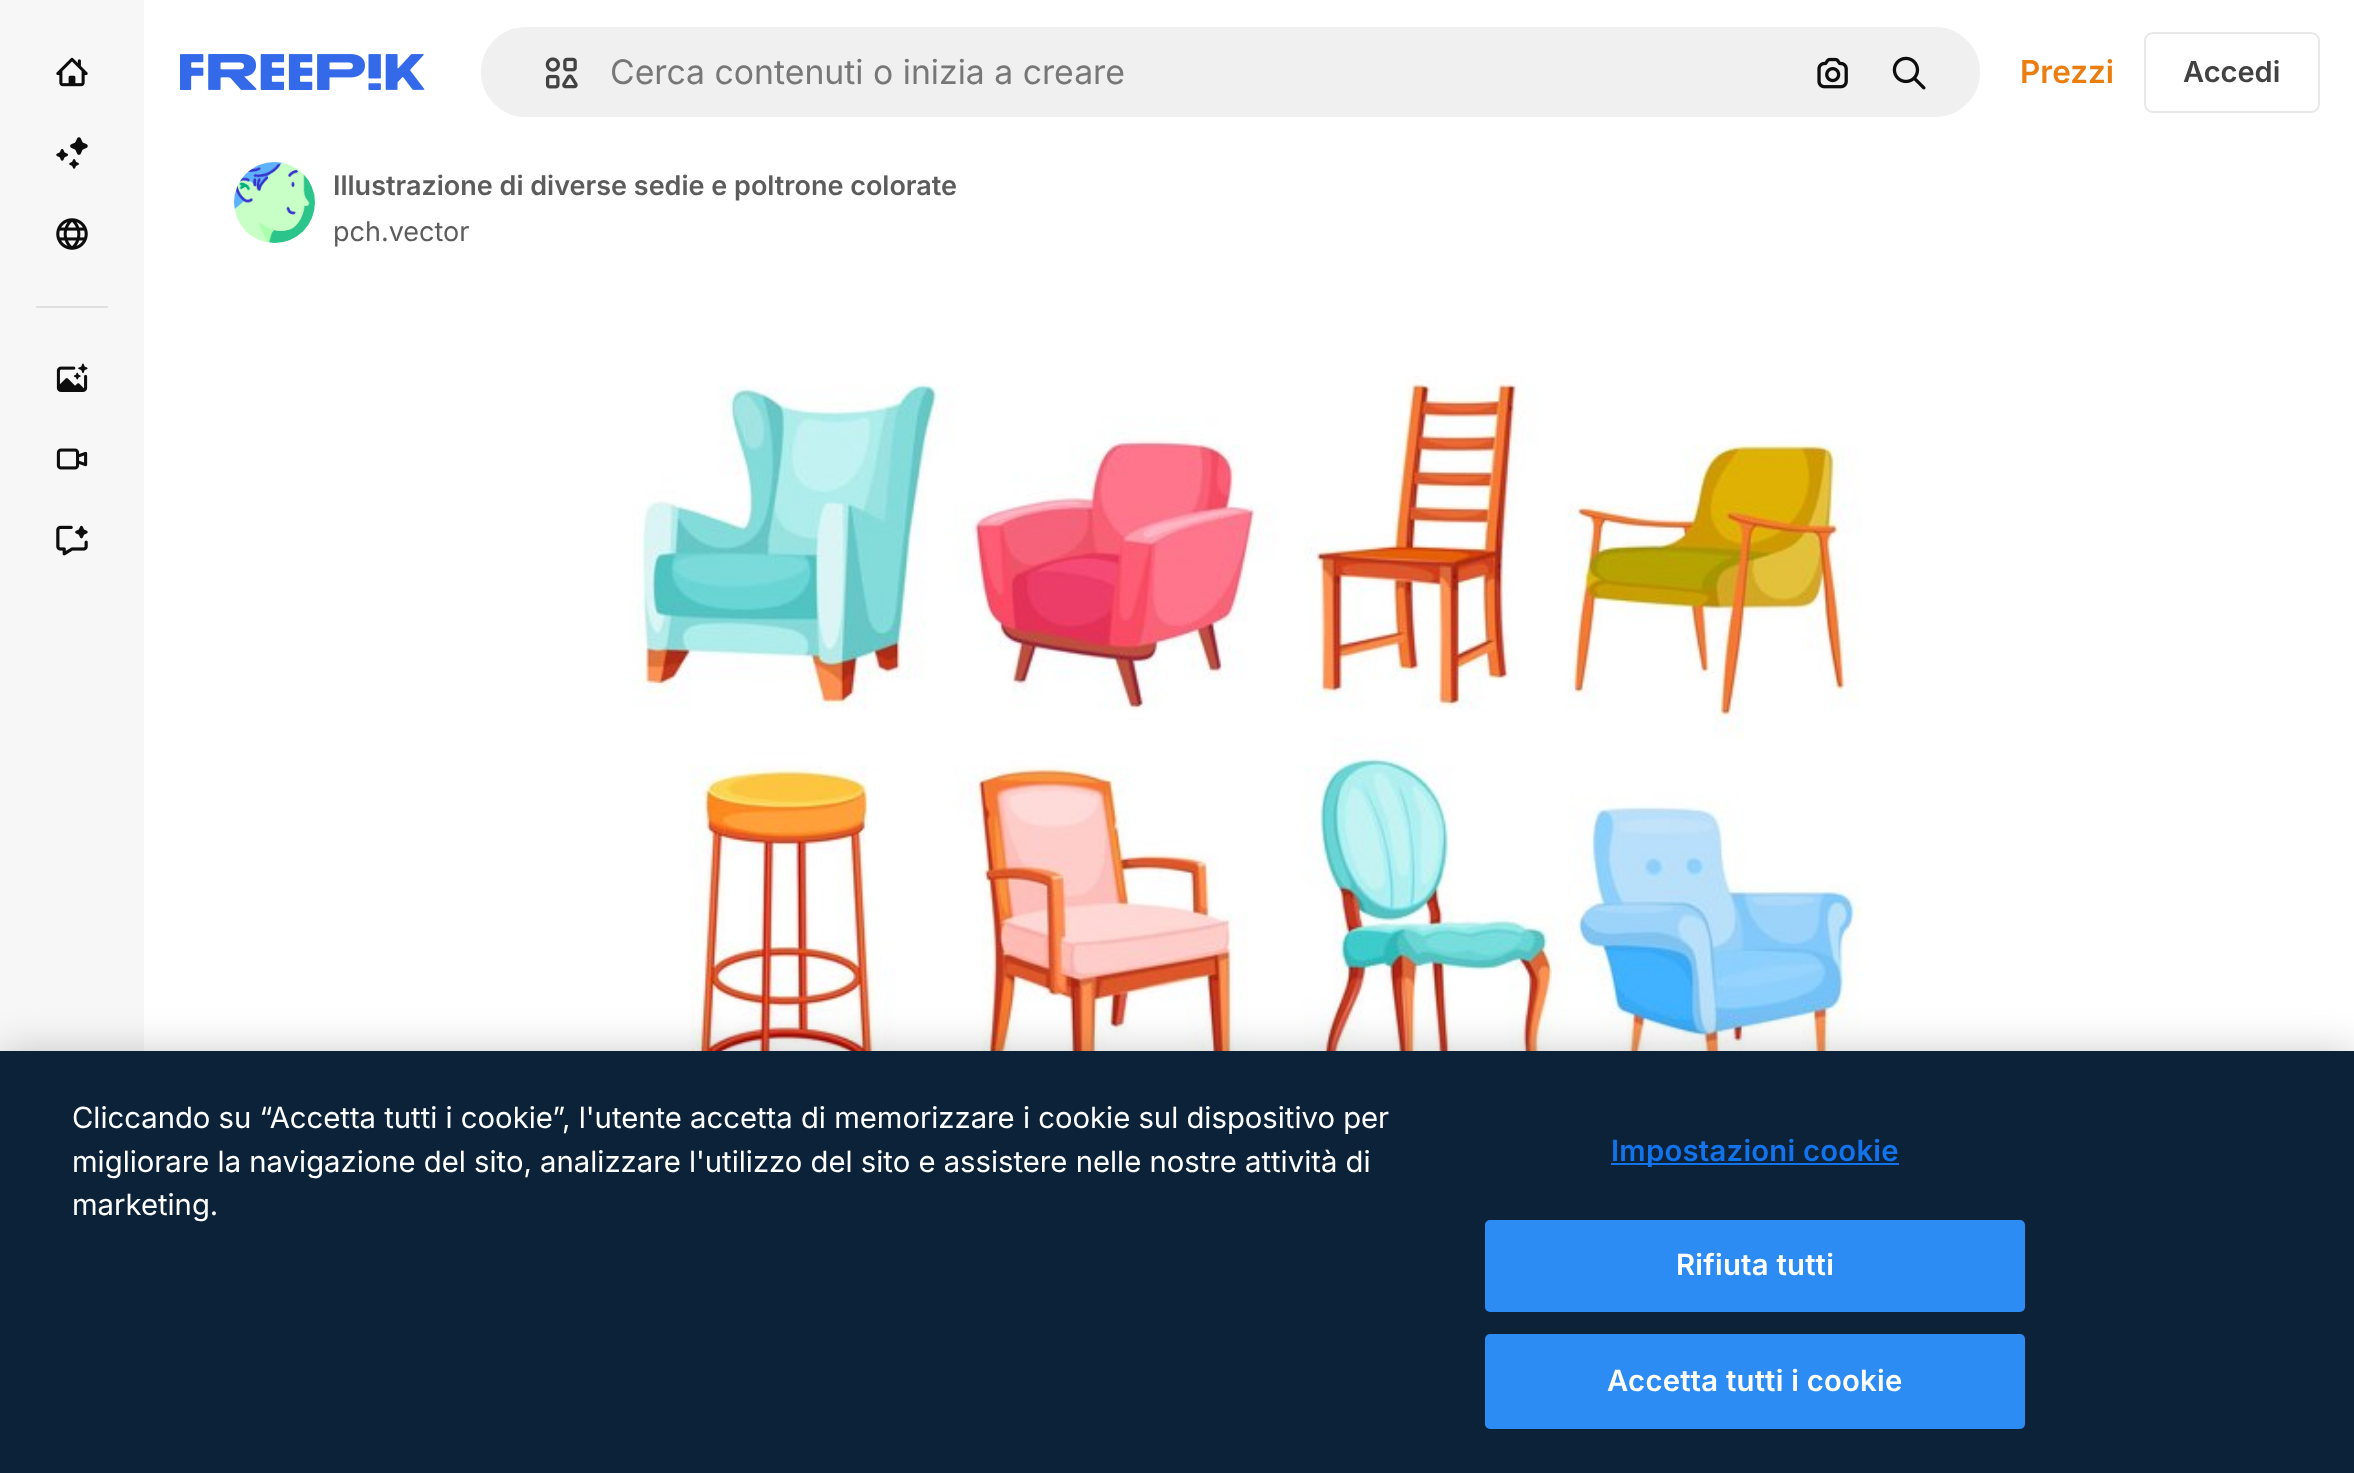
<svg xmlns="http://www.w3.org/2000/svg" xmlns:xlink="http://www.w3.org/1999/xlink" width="2354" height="1473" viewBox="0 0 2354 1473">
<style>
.cls-1{font:33.75px Inter;fill:#777777}
.cls-2{font:600 31.5px Inter;fill:#ea7e11}
.cls-3{font:600 29px Inter;fill:#424242}
.cls-4{font:600 27px Inter;fill:#5c5c5c}
.cls-5{font:27px Inter;fill:#5c5c5c}
.cls-6{font:29.25px Inter;fill:#ffffff}
.cls-7{font:600 29.25px Inter;letter-spacing:0.25px;fill:#1273eb}
.cls-8{font:600 29.25px Inter;letter-spacing:0.25px;fill:#ffffff}
</style>
<rect width="100%" height="100%" fill="#ffffff"/>
<rect fill="#f7f7f7" x="0" y="0" width="144" height="1051"/>
<image xlink:href="image0.png" x="56" y="57" width="32" height="30"/>
<image xlink:href="image1.png" x="56" y="137" width="32" height="32"/>
<image xlink:href="image2.png" x="56" y="218" width="32" height="32"/>
<rect fill="#e0e0e0" x="36" y="306" width="72" height="2"/>
<image xlink:href="image3.png" x="56" y="363" width="32" height="29"/>
<image xlink:href="image4.png" x="56" y="448" width="32" height="22"/>
<image xlink:href="image5.png" x="56" y="525" width="32" height="31"/>
<image xlink:href="image6.png" x="180" y="54" width="245" height="36"/>
<rect fill="#f0f0f0" stroke="#ffffff" stroke-width="2" x="480" y="26" width="1501" height="92" rx="46"/>
<image xlink:href="image7.png" x="545" y="57" width="33" height="32"/>
<image xlink:href="image8.png" x="1817" y="57" width="31" height="32"/>
<image xlink:href="image9.png" x="1892" y="56" width="34" height="34"/>
<rect fill="none" stroke="#e7e7e7" stroke-width="2" x="2145" y="33" width="174" height="79" rx="8"/>
<image xlink:href="image10.png" x="234" y="162" width="81" height="81"/>
<image xlink:href="image11.png" x="632" y="376" width="1230" height="675"/>
<rect fill="#000000" fill-opacity="0.2" filter="blur(20px)" x="0" y="1051" width="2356" height="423"/>
<rect fill="#0b2239" x="0" y="1051" width="2354" height="422"/>
<rect fill="#1273eb" x="1611" y="1163" width="288" height="2"/>
<rect fill="#2c8cf4" stroke="#2c8cf4" stroke-width="2" x="1486" y="1221" width="538" height="90" rx="4"/>
<rect fill="#2c8cf4" stroke="#2c8cf4" stroke-width="2" x="1486" y="1335" width="538" height="93" rx="4"/>
<text class="cls-1" x="610" y="84">Cerca contenuti o inizia a creare</text>
<text class="cls-2" x="2020" y="83">Prezzi</text>
<text class="cls-3" x="2183" y="82">Accedi</text>
<text class="cls-4" x="333" y="195">Illustrazione di diverse sedie e poltrone colorate</text>
<text class="cls-5" x="333" y="241">pch.vector</text>
<text class="cls-6"><tspan x="72" y="1128">Cliccando su “Accetta tutti i cookie”, l'utente accetta di memorizzare i cookie sul dispositivo per</tspan><tspan x="72" y="1172">migliorare la navigazione del sito, analizzare l'utilizzo del sito e assistere nelle nostre attività di</tspan><tspan x="72" y="1215">marketing.</tspan></text>
<text class="cls-7" x="1611" y="1161">Impostazioni cookie</text>
<text class="cls-8" x="1676" y="1275">Rifiuta tutti</text>
<text class="cls-8" x="1607" y="1391">Accetta tutti i cookie</text>
</svg>
